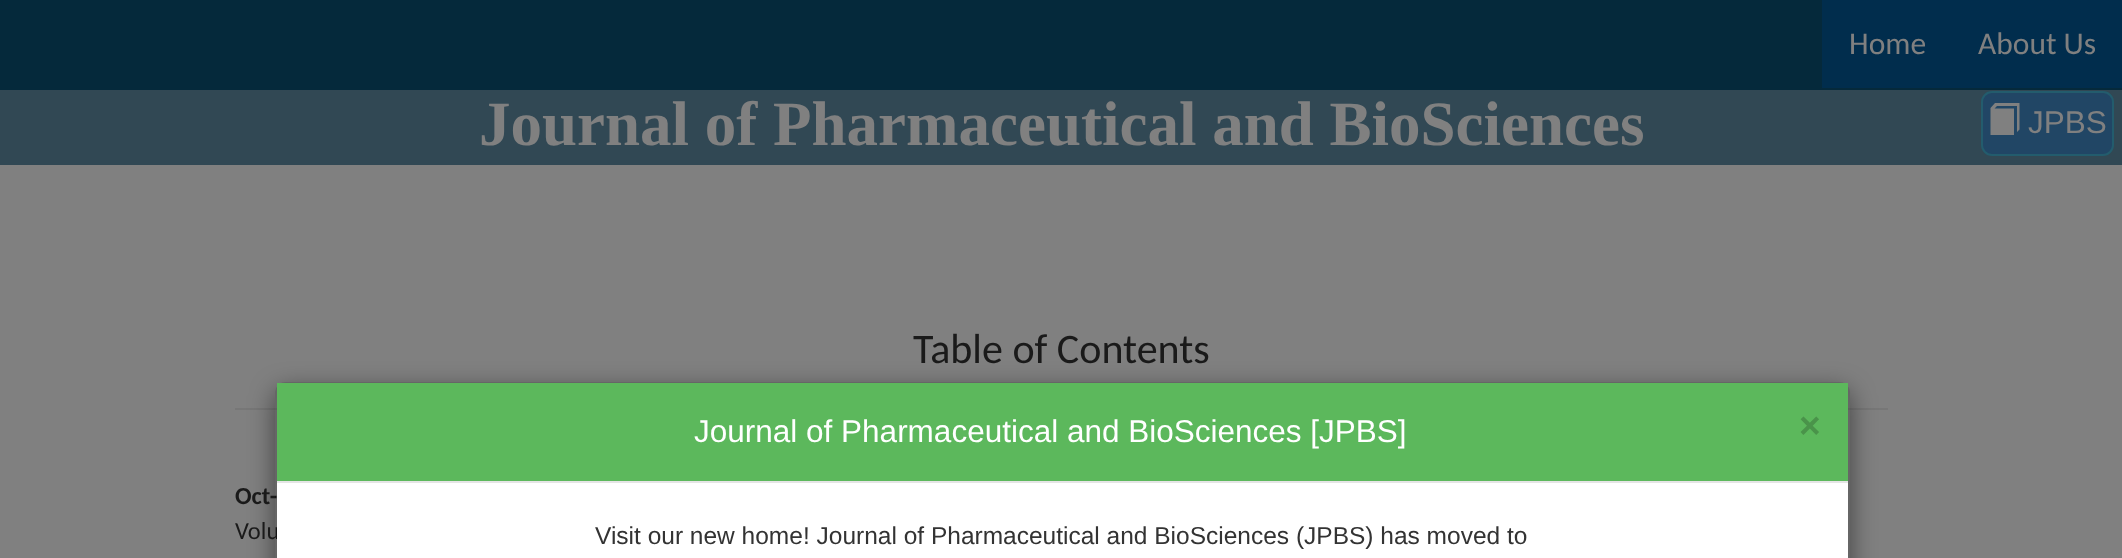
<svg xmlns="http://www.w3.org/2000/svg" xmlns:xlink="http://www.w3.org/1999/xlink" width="2122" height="558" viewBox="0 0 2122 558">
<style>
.cls-1{font:31.5px Carlito;fill:#808080}
.cls-2{font:bold 63px Liberation Serif;fill:#808080}
.cls-3{font:42px Carlito;fill:#1a1a1a}
.cls-4{font:bold 24.5px Carlito;fill:#1a1a1a}
.cls-5{font:24.5px Carlito;fill:#1a1a1a}
.cls-6{font:31.5px Liberation Sans;fill:#808080}
.cls-7{font:31.5px Liberation Sans;fill:#ffffff}
.cls-8{font:bold 37px Liberation Sans;fill:#4a934a}
.cls-9{font:24.5px Liberation Sans;fill:#333333}
</style>
<defs>
<clipPath id="clip1"><path d="M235 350H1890V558H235ZM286 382H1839C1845 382 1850 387 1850 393V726C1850 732 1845 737 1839 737H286C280 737 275 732 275 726V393C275 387 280 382 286 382Z" clip-rule="evenodd"/></clipPath>
</defs>
<rect width="100%" height="100%" fill="#808080"/>
<rect fill="#05293b" x="0" y="0" width="1822" height="88"/>
<rect fill="#05293b" x="0" y="88" width="2122" height="2"/>
<rect fill="#012d4d" x="1822" y="0" width="300" height="88"/>
<rect fill="#314854" x="0" y="90" width="2122" height="75"/>
<rect fill="#777777" x="235" y="408" width="1653" height="2"/>
<rect fill="#214665" stroke="#235c6d" stroke-width="2" x="1982" y="92" width="131" height="63" rx="10"/>
<path fill="#808080" d="M1990.5 135V108L1995 103H2019.5V129.5L2017 132V106H1997L1994.5 108.5H2014V135Z"/>
<g clip-path="url(#clip1)">
<rect fill="#000000" fill-opacity="0.5" filter="blur(13px)" x="275" y="390" width="1575" height="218" rx="11"/>
</g>
<text class="cls-1" x="1849" y="54">Home</text>
<text class="cls-1" x="1978" y="54">About Us</text>
<text class="cls-2" x="479" y="145">Journal of Pharmaceutical and BioSciences</text>
<text class="cls-3" x="913" y="363">Table of Contents</text>
<text class="cls-4" x="235" y="504">Oct-</text>
<text class="cls-5" x="235" y="539">Volu</text>
<text class="cls-6" x="2028" y="133">JPBS</text>
<rect fill="#ffffff" x="277" y="483" width="1571" height="75"/>
<rect fill="none" stroke="#000000" stroke-opacity="0.2" stroke-width="2" x="276" y="383" width="1573" height="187" rx="10"/>
<rect fill="#5cb85c" x="277" y="383" width="1571" height="98"/>
<rect fill="#e5e5e5" x="277" y="481" width="1571" height="2"/>
<text class="cls-7" x="694" y="442">Journal of Pharmaceutical and BioSciences [JPBS]</text>
<text class="cls-8" x="1799" y="438">×</text>
<text class="cls-9" x="595" y="544">Visit our new home! Journal of Pharmaceutical and BioSciences (JPBS) has moved to</text>
</svg>
